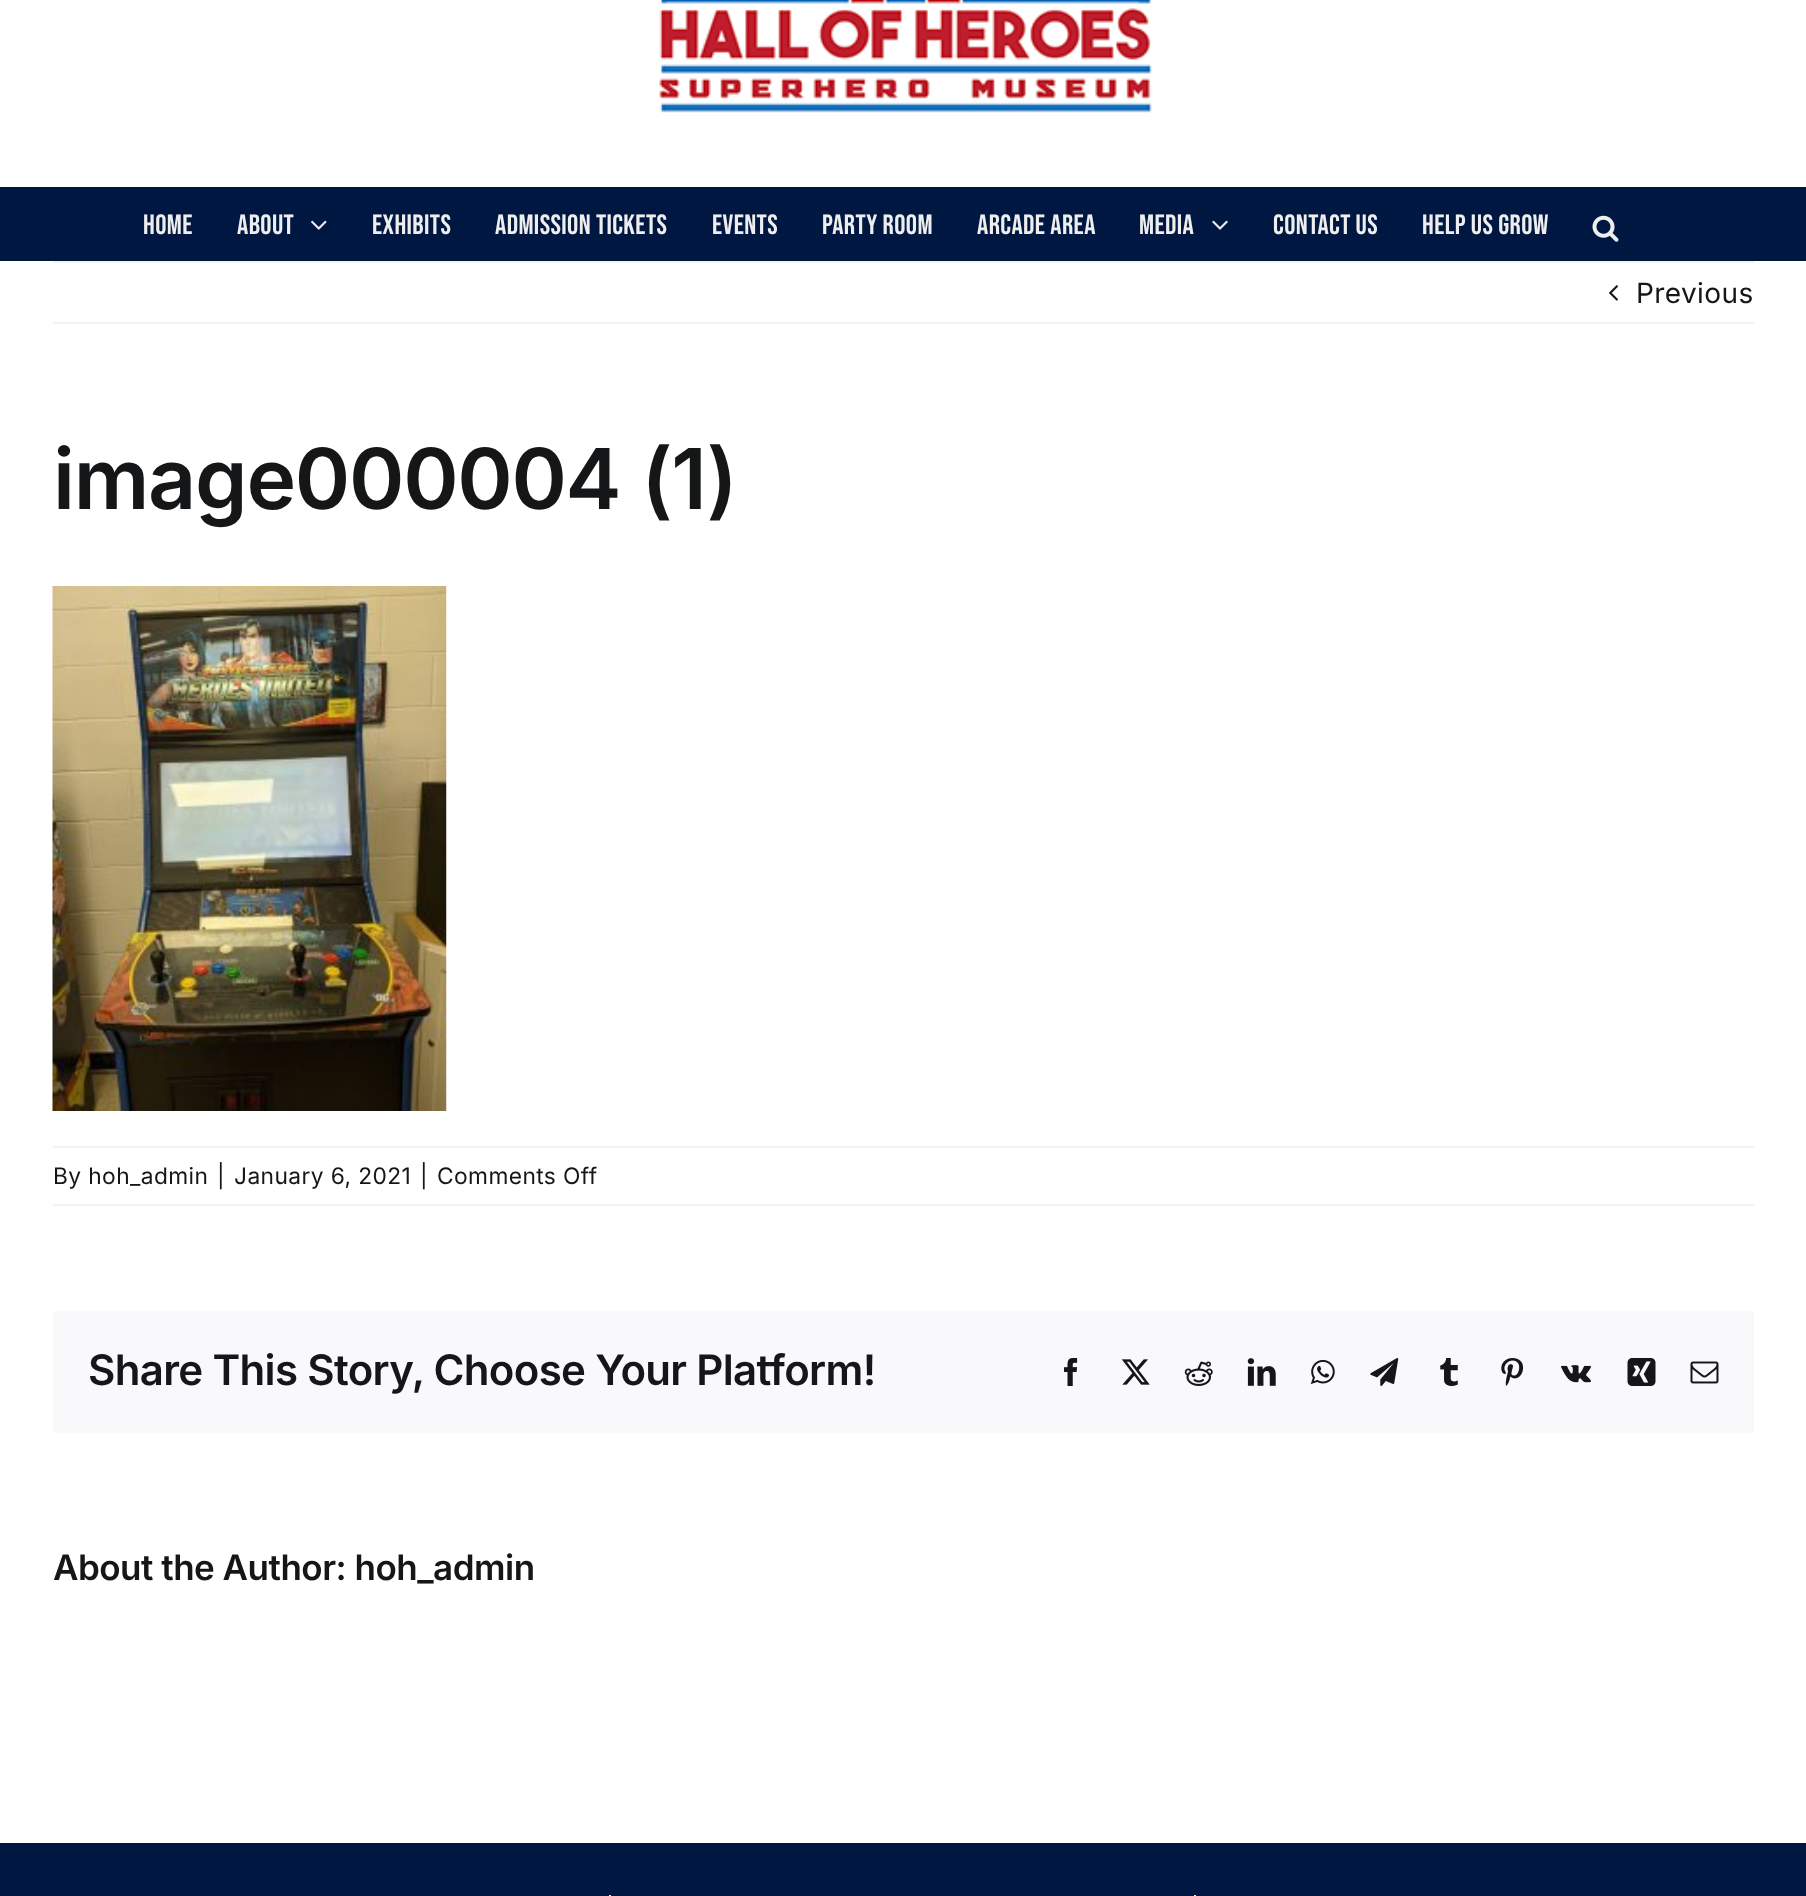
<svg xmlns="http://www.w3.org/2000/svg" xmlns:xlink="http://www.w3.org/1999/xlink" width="1806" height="1896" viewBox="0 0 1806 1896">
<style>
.cls-1{font:28px Bebas Neue;letter-spacing:0.4px;fill:#eeeeee}
.cls-2{font:28px Inter;letter-spacing:0.4px;fill:#141617}
.cls-3{font:600 84px Inter;letter-spacing:-1.25px;fill:#141617}
.cls-4{font:22.75px Inter;letter-spacing:0.4px;fill:#141617}
.cls-5{font:600 42px Inter;letter-spacing:-0.65px;fill:#141617}
.cls-6{font:600 35px Inter;letter-spacing:-0.5px;fill:#141617}
</style>
<rect width="100%" height="100%" fill="#ffffff"/>
<image xlink:href="image0.png" x="659" y="0" width="493" height="113"/>
<rect fill="#001741" x="0" y="187" width="1806" height="74"/>
<image xlink:href="image1.png" x="311" y="220" width="16" height="10"/>
<image xlink:href="image2.png" x="1212" y="220" width="16" height="10"/>
<image xlink:href="image3.png" x="1592" y="215" width="27" height="27"/>
<rect fill="#f2f3f5" x="53" y="261" width="1701" height="2"/>
<rect fill="#f2f3f5" x="53" y="322" width="1701" height="2"/>
<image xlink:href="image4.png" x="1609" y="285" width="9" height="16"/>
<image xlink:href="image5.png" x="52" y="586" width="395" height="525"/>
<rect fill="#f2f3f5" x="53" y="1146" width="1701" height="2"/>
<rect fill="#f2f3f5" x="53" y="1204" width="1701" height="2"/>
<rect fill="#f9f9fb" x="53" y="1311" width="1701" height="122"/>
<image xlink:href="image6.png" x="1064" y="1358" width="14" height="28"/>
<image xlink:href="image7.png" x="1121" y="1359" width="29" height="26"/>
<image xlink:href="image8.png" x="1184" y="1361" width="29" height="25"/>
<image xlink:href="image9.png" x="1247" y="1358" width="29" height="28"/>
<image xlink:href="image10.png" x="1310" y="1359" width="25" height="25"/>
<image xlink:href="image11.png" x="1370" y="1358" width="29" height="28"/>
<image xlink:href="image12.png" x="1440" y="1358" width="18" height="28"/>
<image xlink:href="image13.png" x="1501" y="1358" width="23" height="28"/>
<image xlink:href="image14.png" x="1561" y="1365" width="30" height="18"/>
<image xlink:href="image15.png" x="1627" y="1358" width="29" height="28"/>
<image xlink:href="image16.png" x="1690" y="1361" width="29" height="23"/>
<rect fill="#001741" x="0" y="1843" width="1806" height="53"/>
<rect fill="#efefef" x="609" y="1895" width="2" height="1"/>
<rect fill="#efefef" x="1194" y="1895" width="2" height="1"/>
<text class="cls-1" x="143" y="234">Home</text>
<text class="cls-1" x="237" y="234">About</text>
<text class="cls-1" x="372" y="234">Exhibits</text>
<text class="cls-1" x="495" y="234">Admission Tickets</text>
<text class="cls-1" x="712" y="234">Events</text>
<text class="cls-1" x="822" y="234">Party Room</text>
<text class="cls-1" x="977" y="234">Arcade Area</text>
<text class="cls-1" x="1139" y="234">Media</text>
<text class="cls-1" x="1273" y="234">Contact Us</text>
<text class="cls-1" x="1422" y="234">Help Us Grow</text>
<text class="cls-2" x="1636" y="303">Previous</text>
<text class="cls-3" x="53" y="509" word-spacing="1">image000004 (1)</text>
<text class="cls-4" x="53" y="1184">By hoh_admin</text>
<text class="cls-4" x="217" y="1184">|</text>
<text class="cls-4" x="234" y="1184">January 6, 2021</text>
<text class="cls-4" x="420" y="1184">|</text>
<text class="cls-4" x="437" y="1184">Comments Off</text>
<text class="cls-5" x="88" y="1385">Share This Story, Choose Your Platform!</text>
<text class="cls-6" x="53" y="1580">About the Author: hoh_admin</text>
</svg>
